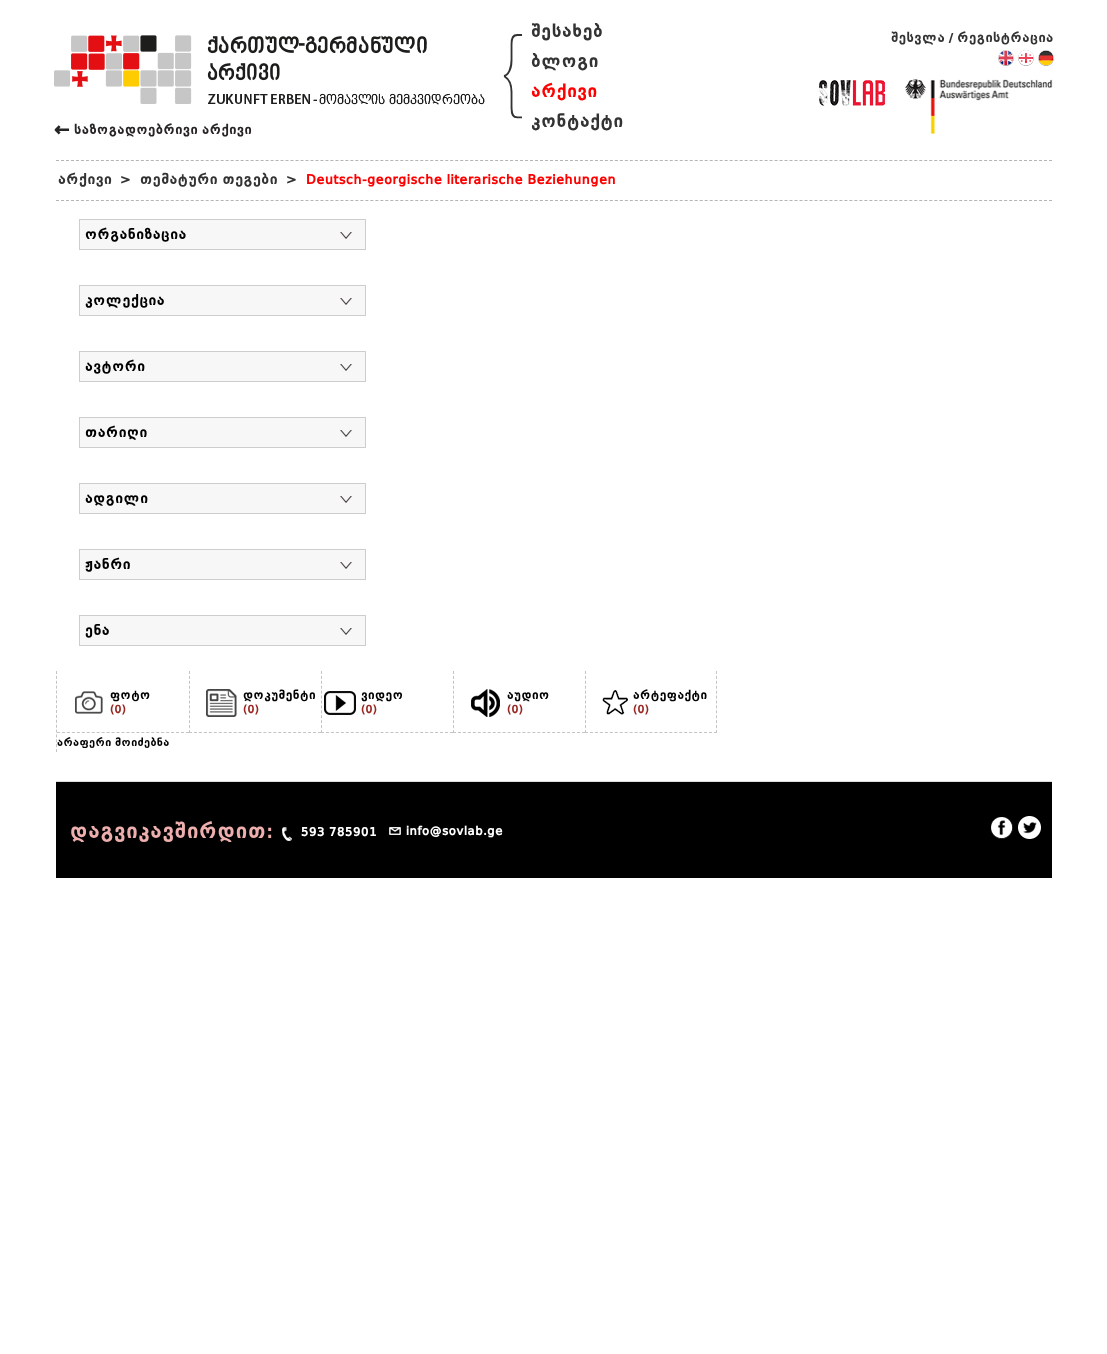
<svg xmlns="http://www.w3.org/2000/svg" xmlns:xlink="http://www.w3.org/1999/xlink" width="1107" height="1354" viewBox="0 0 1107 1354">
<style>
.cls-1{font:200 93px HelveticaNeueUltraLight;fill:#333333}
.cls-2{font:bold 16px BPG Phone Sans;fill:#333333}
.cls-3{font:bold 16px BPG Phone Sans;fill:#ff0000}
.cls-4{font:bold 12px BPG Phone Sans;fill:#333333}
.cls-5{font:bold 20px BPG Phone Sans;fill:#272424}
.cls-6{font:bold 12px BPG Phone Sans;fill:#272424}
.cls-7{font:bold 13px BPG Phone Sans;fill:#333333}
.cls-8{font:bold 13px BPG Phone Sans;fill:#ff0000}
.cls-9{font:bold 13px BPG Phone Sans;fill:#000000}
.cls-10{font:bold 11px BPG Phone Sans;fill:#000000}
.cls-11{font:bold 11px BPG Phone Sans;fill:#992722}
.cls-12{font:bold 10px BPG Phone Sans;fill:#000000}
.cls-13{font:bold 19px BPG Phone Sans;fill:#edafae}
.cls-14{font:bold 12px BPG Phone Sans;fill:#ffffff}
</style>
<rect width="100%" height="100%" fill="#ffffff"/>
<image xlink:href="image0.png" x="998" y="50" width="16" height="16"/>
<image xlink:href="image1.png" x="1018" y="50" width="16" height="16"/>
<image xlink:href="image2.png" x="1038" y="50" width="16" height="16"/>
<image xlink:href="image3.png" x="819" y="80" width="66" height="26"/>
<image xlink:href="image4.png" x="905" y="79" width="148" height="55"/>
<image xlink:href="image5.png" x="54" y="35" width="431" height="70"/>
<path fill="none" stroke="#b6b4b5" stroke-dasharray="3 1.99" d="M56 160.5H1052"/>
<path fill="none" stroke="#b6b4b5" stroke-dasharray="3 1.99" d="M56 200.5H1052"/>
<rect fill="#f7f7f7" x="80" y="220" width="285" height="29"/>
<image xlink:href="image6.png" x="340" y="232" width="12" height="7"/>
<rect fill="none" stroke="#cdcdcd" x="79.5" y="219.5" width="286" height="30"/>
<rect fill="#f7f7f7" x="80" y="286" width="285" height="29"/>
<image xlink:href="image6.png" x="340" y="298" width="12" height="7"/>
<rect fill="none" stroke="#cdcdcd" x="79.5" y="285.5" width="286" height="30"/>
<rect fill="#f7f7f7" x="80" y="352" width="285" height="29"/>
<image xlink:href="image6.png" x="340" y="364" width="12" height="7"/>
<rect fill="none" stroke="#cdcdcd" x="79.5" y="351.5" width="286" height="30"/>
<rect fill="#f7f7f7" x="80" y="418" width="285" height="29"/>
<image xlink:href="image6.png" x="340" y="430" width="12" height="7"/>
<rect fill="none" stroke="#cdcdcd" x="79.5" y="417.5" width="286" height="30"/>
<rect fill="#f7f7f7" x="80" y="484" width="285" height="29"/>
<image xlink:href="image6.png" x="340" y="496" width="12" height="7"/>
<rect fill="none" stroke="#cdcdcd" x="79.5" y="483.5" width="286" height="30"/>
<rect fill="#f7f7f7" x="80" y="550" width="285" height="29"/>
<image xlink:href="image6.png" x="340" y="562" width="12" height="7"/>
<rect fill="none" stroke="#cdcdcd" x="79.5" y="549.5" width="286" height="30"/>
<rect fill="#f7f7f7" x="80" y="616" width="285" height="29"/>
<image xlink:href="image6.png" x="340" y="628" width="12" height="7"/>
<rect fill="none" stroke="#cdcdcd" x="79.5" y="615.5" width="286" height="30"/>
<path fill="none" stroke="#c5c4c4" stroke-dasharray="3 1.88" d="M56.5 671V752"/>
<path fill="none" stroke="#c5c4c4" stroke-dasharray="3 1.96" d="M57 732.5H189"/>
<image xlink:href="image7.png" x="75" y="691" width="28" height="23"/>
<path fill="none" stroke="#c5c4c4" stroke-dasharray="3 1.96" d="M189 732.5H321"/>
<path fill="none" stroke="#c5c4c4" stroke-dasharray="3 1.92" d="M189.5 671V733"/>
<image xlink:href="image8.png" x="206" y="689" width="31" height="28"/>
<path fill="none" stroke="#c5c4c4" stroke-dasharray="3 1.96" d="M321 732.5H453"/>
<path fill="none" stroke="#c5c4c4" stroke-dasharray="3 1.92" d="M321.5 671V733"/>
<image xlink:href="image9.png" x="324" y="691" width="32" height="24"/>
<path fill="none" stroke="#c5c4c4" stroke-dasharray="3 1.96" d="M453 732.5H585"/>
<path fill="none" stroke="#c5c4c4" stroke-dasharray="3 1.92" d="M453.5 671V733"/>
<image xlink:href="image10.png" x="471" y="689" width="29" height="28"/>
<path fill="none" stroke="#c5c4c4" stroke-dasharray="3 1.92" d="M716.5 671V733"/>
<path fill="none" stroke="#c5c4c4" stroke-dasharray="3 1.96" d="M585 732.5H717"/>
<path fill="none" stroke="#c5c4c4" stroke-dasharray="3 1.92" d="M585.5 671V733"/>
<image xlink:href="image11.png" x="602" y="690" width="26" height="25"/>
<rect fill="#000000" x="56" y="782" width="996" height="96"/>
<rect fill="#dddddd" x="56" y="781" width="996" height="1"/>
<image xlink:href="image12.png" x="282" y="827" width="10" height="14"/>
<image xlink:href="image13.png" x="389" y="827" width="12" height="8"/>
<image xlink:href="image14.png" x="991" y="817" width="22" height="22"/>
<image xlink:href="image15.png" x="1018" y="816" width="23" height="23"/>
<text class="cls-1" x="496" y="102">{</text>
<text class="cls-2"><tspan x="531" y="37">შესახებ</tspan><tspan x="531" y="67">ბლოგი</tspan></text>
<text class="cls-3" x="531" y="97">არქივი</text>
<text class="cls-2" x="531" y="127">კონტაქტი</text>
<text class="cls-4" x="891" y="42">შესვლა / რეგისტრაცია</text>
<text class="cls-5" x="54" y="136">←</text>
<text class="cls-6" x="74" y="134">საზოგადოებრივი არქივი</text>
<text class="cls-7" x="58" y="184">არქივი</text>
<text class="cls-7" x="120" y="184">&gt;</text>
<text class="cls-7" x="140" y="184">თემატური თეგები</text>
<text class="cls-7" x="286" y="184">&gt;</text>
<text class="cls-8" x="306" y="184">Deutsch-georgische literarische Beziehungen</text>
<text class="cls-9" x="85" y="239">ორგანიზაცია</text>
<text class="cls-9" x="85" y="305">კოლექცია</text>
<text class="cls-9" x="85" y="371">ავტორი</text>
<text class="cls-9" x="85" y="437">თარიღი</text>
<text class="cls-9" x="85" y="503">ადგილი</text>
<text class="cls-9" x="85" y="569">ჟანრი</text>
<text class="cls-9" x="85" y="635">ენა</text>
<text class="cls-10" x="110" y="699">ფოტო</text>
<text class="cls-11" x="110" y="713">(0)</text>
<text class="cls-10" x="243" y="699">დოკუმენტი</text>
<text class="cls-11" x="243" y="713">(0)</text>
<text class="cls-10" x="361" y="699">ვიდეო</text>
<text class="cls-11" x="361" y="713">(0)</text>
<text class="cls-10" x="507" y="699">აუდიო</text>
<text class="cls-11" x="507" y="713">(0)</text>
<text class="cls-10" x="633" y="699">არტეფაქტი</text>
<text class="cls-11" x="633" y="713">(0)</text>
<text class="cls-12" x="57" y="746">არაფერი მოიძებნა</text>
<text class="cls-13" x="70" y="838">დაგვიკავშირდით:</text>
<text class="cls-14" x="301" y="836">593 785901</text>
<text class="cls-14" x="406" y="835">info@sovlab.ge</text>
</svg>
